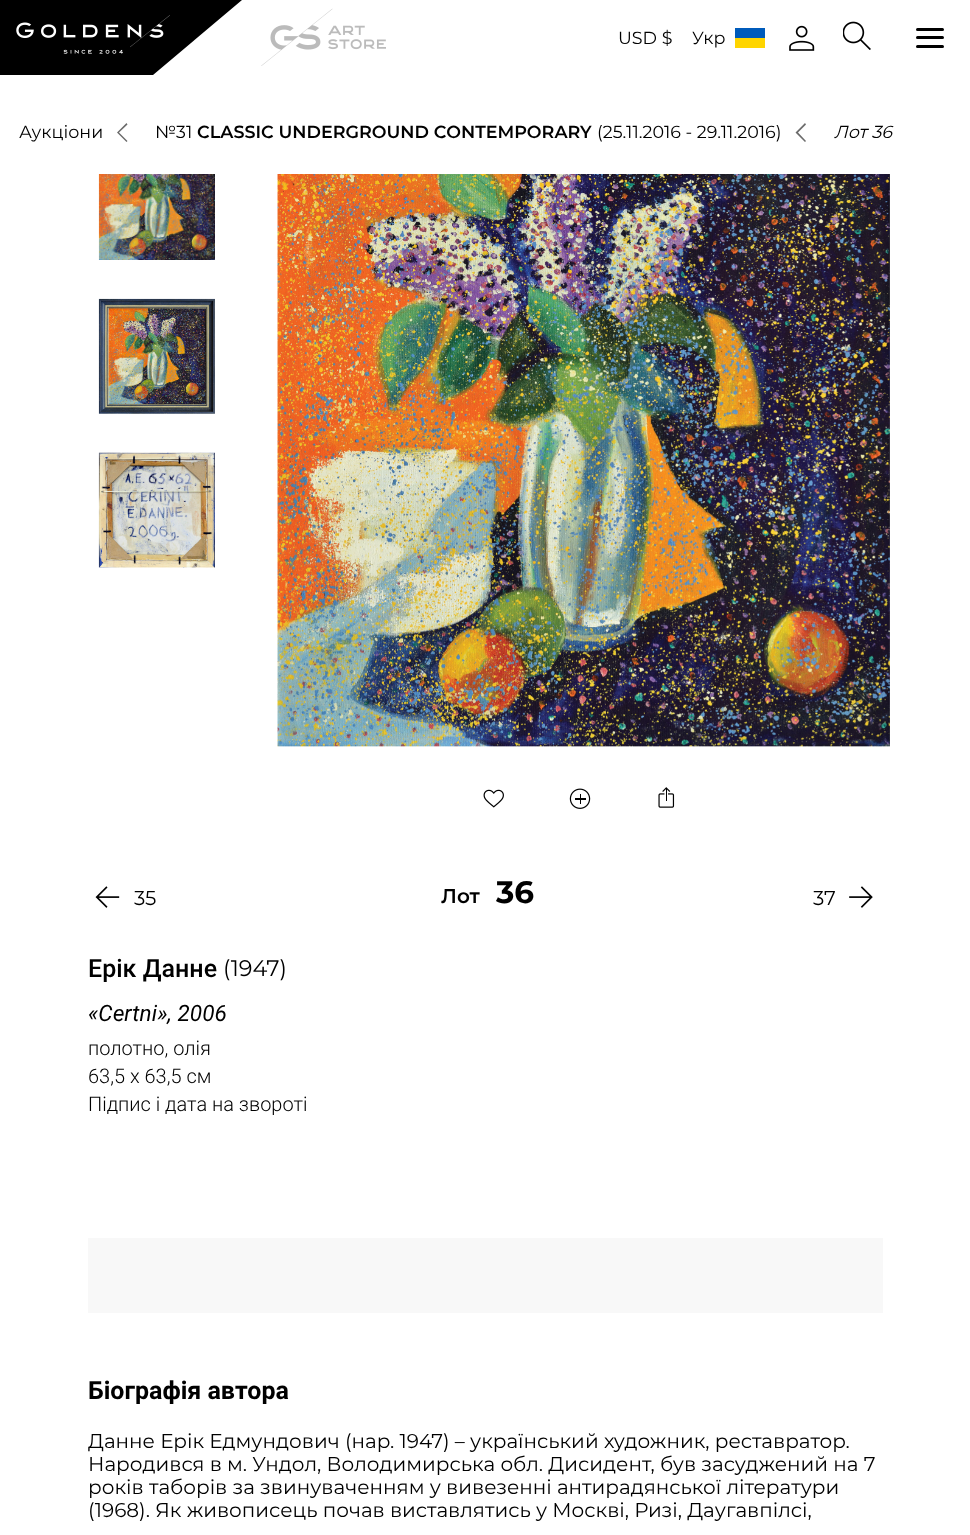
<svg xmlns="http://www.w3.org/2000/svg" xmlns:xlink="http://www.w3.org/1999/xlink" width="970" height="1535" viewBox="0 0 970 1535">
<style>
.cls-1{font:17.5px Montserrat;fill:#000000}
.cls-2{font:600 17.5px Montserrat;fill:#000000}
.cls-3{font:italic 17.5px Montserrat;fill:#000000}
.cls-4{font:20px Montserrat;fill:#000000}
.cls-5{font:600 20px Montserrat;fill:#000000}
.cls-6{font:bold 31px Montserrat;fill:#000000}
.cls-7{font:500 25px Roboto;fill:#000000}
.cls-8{font:22.5px Montserrat;fill:#000000}
.cls-9{font:italic 22.5px Roboto;fill:#000000}
.cls-10{font:300 20px Roboto;fill:#000000}
.cls-11{font:bold 25px Roboto;fill:#000000}
</style>
<rect width="100%" height="100%" fill="#ffffff"/>
<path fill="#000000" d="M-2 0V75H153L242 0Z"/>
<image xlink:href="image0.png" x="16" y="15" width="154" height="39"/>
<image xlink:href="image1.png" x="261" y="8" width="125" height="58"/>
<rect fill="#005bbb" x="735" y="28" width="30" height="10"/>
<rect fill="#ffd500" x="735" y="38" width="30" height="10"/>
<image xlink:href="image2.png" x="789" y="25" width="26" height="26"/>
<image xlink:href="image3.png" x="843" y="21" width="28" height="29"/>
<rect fill="#000000" x="916" y="28" width="28" height="3" rx="1.5"/>
<rect fill="#000000" x="916" y="36" width="28" height="3" rx="1.5"/>
<rect fill="#000000" x="916" y="45" width="28" height="3" rx="1.5"/>
<path fill="#6b6b6b" d="M126.5 142L117 132.5L126.5 123L127.5 124.5L119 132.5L127.5 141Z"/>
<path fill="#6b6b6b" d="M805 142L795.5 132.5L805 123L806 124.5L798 132.5L806 141Z"/>
<image xlink:href="image4.png" x="98" y="174" width="117" height="86"/>
<image xlink:href="image5.png" x="98" y="298" width="117" height="116"/>
<image xlink:href="image6.png" x="98" y="452" width="117" height="116"/>
<image xlink:href="image7.png" x="277" y="174" width="613" height="573"/>
<image xlink:href="image8.png" x="483" y="789" width="21" height="19"/>
<image xlink:href="image9.png" x="569" y="788" width="22" height="21"/>
<image xlink:href="image10.png" x="658" y="787" width="17" height="21"/>
<image xlink:href="image11.png" x="95" y="886" width="25" height="22"/>
<image xlink:href="image12.png" x="849" y="886" width="24" height="22"/>
<rect fill="#f8f8f8" x="88" y="1238" width="795" height="75"/>
<text class="cls-1" x="618" y="44">USD $</text>
<text class="cls-1" x="692" y="44">Укр</text>
<text class="cls-1" x="19" y="138">Аукціони</text>
<text class="cls-1" x="155" y="138">№31</text>
<text class="cls-2" x="197" y="138">CLASSIC UNDERGROUND CONTEMPORARY</text>
<text class="cls-1" x="597" y="138">(25.11.2016 - 29.11.2016)</text>
<text class="cls-3" x="834" y="138">Лот 36</text>
<text class="cls-4" x="134" y="905">35</text>
<text class="cls-5" x="441" y="903">Лот</text>
<text class="cls-6" x="496" y="903">36</text>
<text class="cls-4" x="813" y="905">37</text>
<text class="cls-7" x="88" y="977">Ерік Данне</text>
<text class="cls-8" x="223" y="976">(1947)</text>
<text class="cls-9" x="88" y="1021">«Certni», 2006</text>
<text class="cls-10"><tspan x="88" y="1055">полотно, олія</tspan><tspan x="88" y="1083">63,5 х 63,5 см</tspan><tspan x="88" y="1111">Підпис і дата на звороті</tspan></text>
<text class="cls-11" x="88" y="1399">Біографія автора</text>
<text class="cls-4"><tspan x="88" y="1448">Данне Ерік Едмундович (нар. 1947) – український художник, реставратор.</tspan><tspan x="88" y="1471">Народився в м. Ундол, Володимирська обл. Дисидент, був засуджений на 7</tspan><tspan x="88" y="1494">років таборів за звинуваченням у вивезенні антирадянської літератури</tspan><tspan x="88" y="1517">(1968). Як живописець почав виставлятись у Москві, Ризі, Даугавпілсі,</tspan></text>
</svg>
